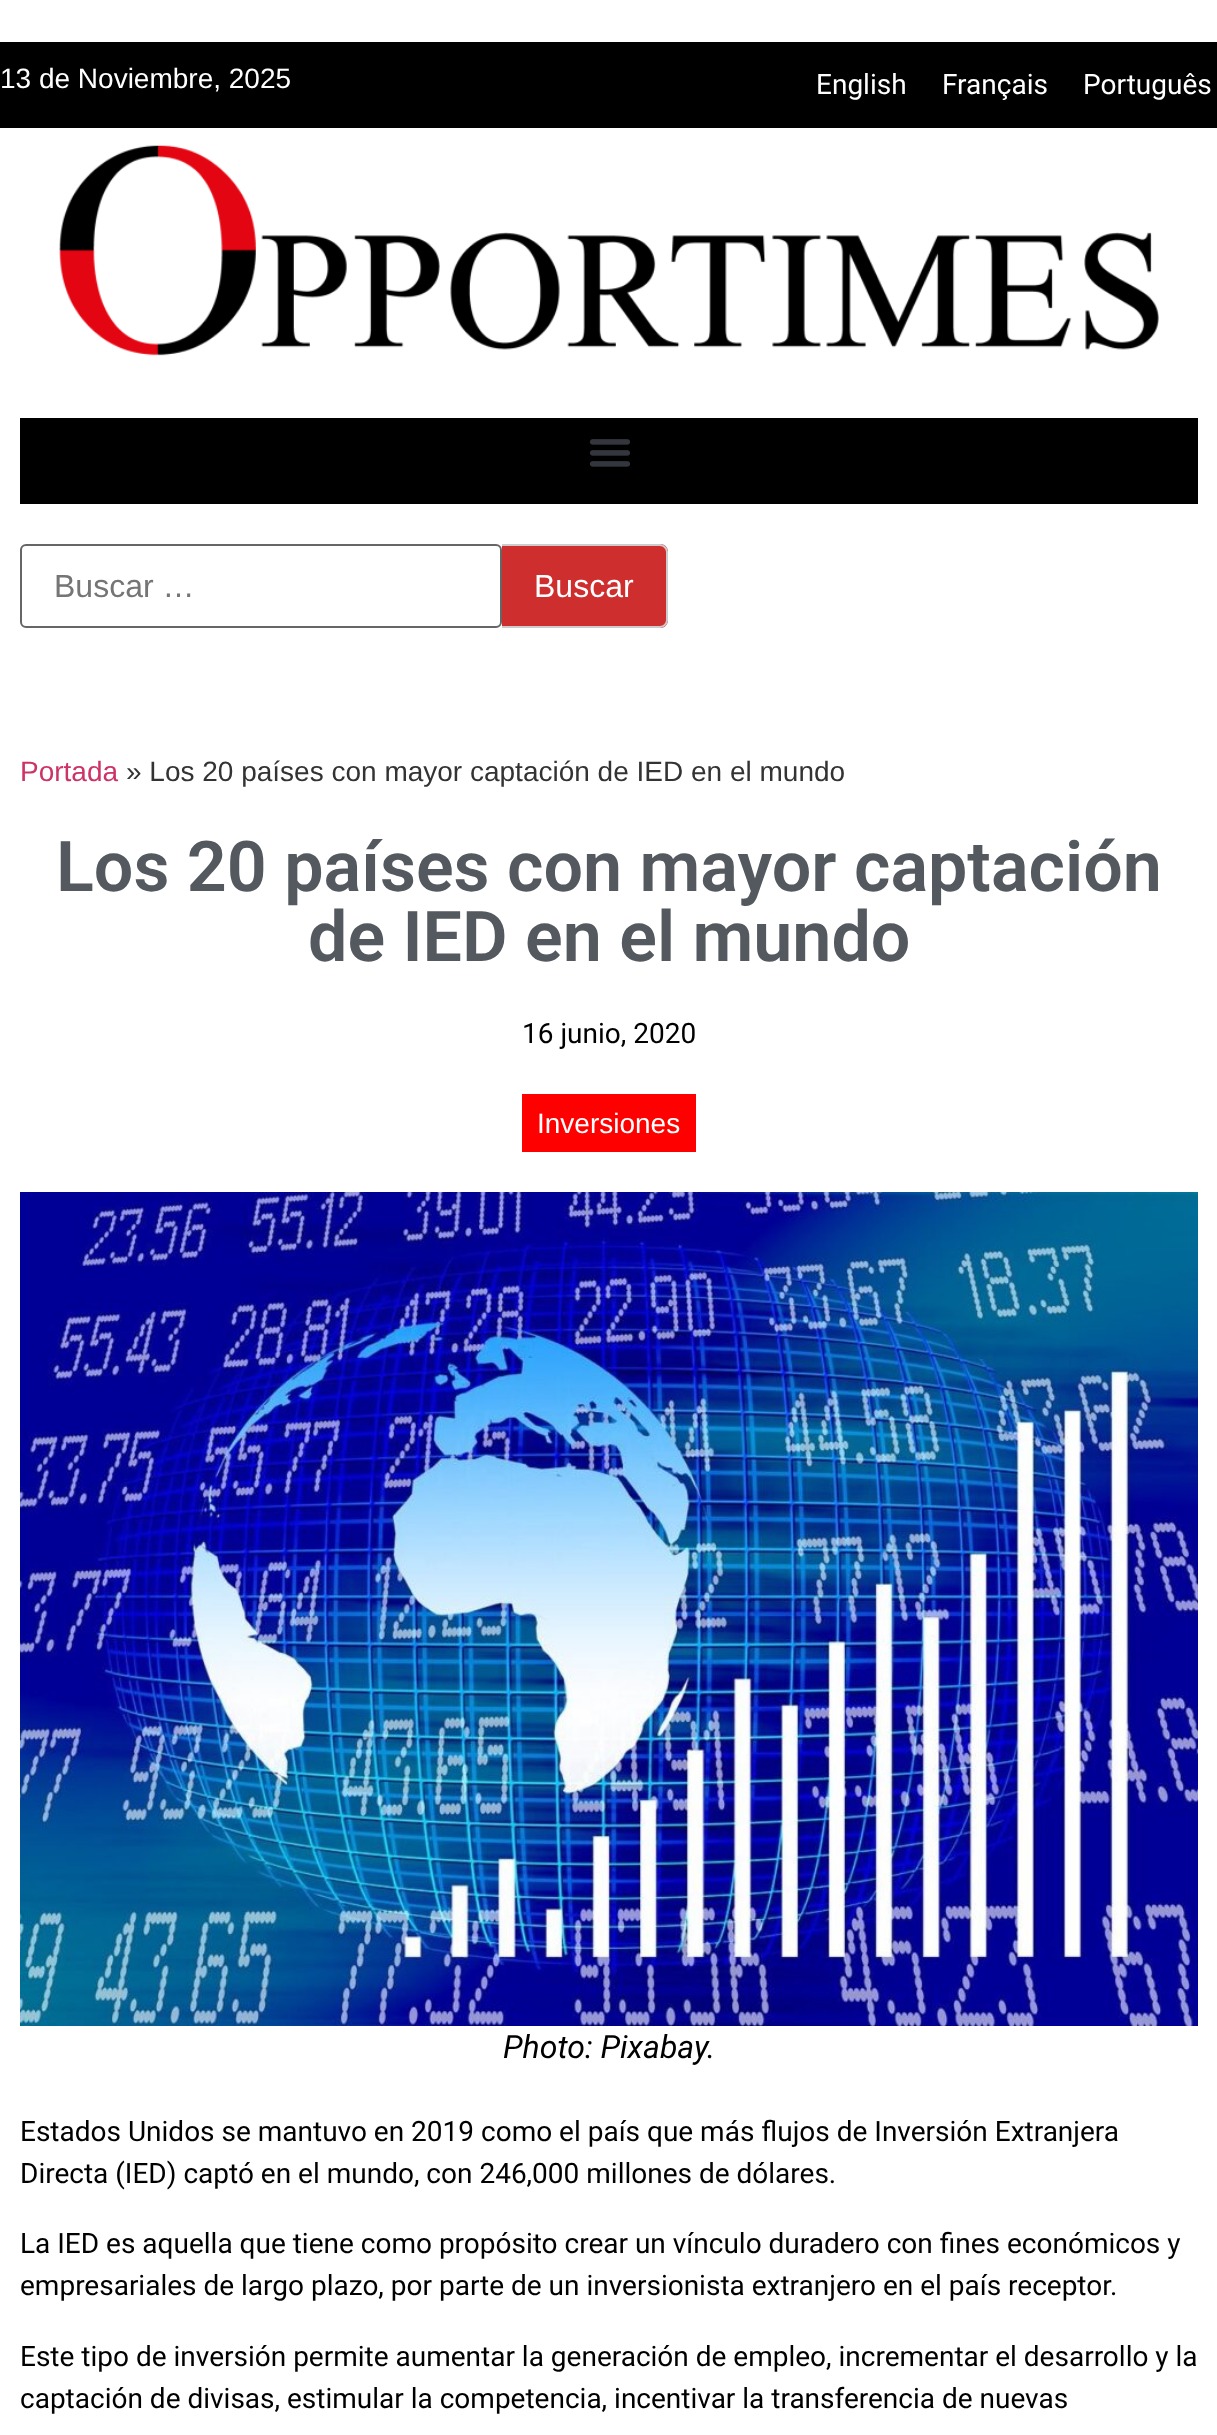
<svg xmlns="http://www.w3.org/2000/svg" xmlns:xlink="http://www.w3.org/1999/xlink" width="1217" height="2435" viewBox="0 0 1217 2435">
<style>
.cls-1{font:28px Liberation Sans;fill:#ffffff}
.cls-2{font:28px Roboto;fill:#ffffff}
.cls-3{font:32px Liberation Sans;fill:#757575}
.cls-4{font:32px Liberation Sans;fill:#ffffff}
.cls-5{font:28px Liberation Sans;fill:#cc3366}
.cls-6{font:28px Liberation Sans;fill:#333333}
.cls-7{font:600 70px Roboto;fill:#54595f}
.cls-8{font:28px Roboto;fill:#000000}
.cls-9{font:italic 32px Roboto;fill:#000000}
</style>
<rect width="100%" height="100%" fill="#ffffff"/>
<rect fill="#000000" x="0" y="42" width="1217" height="86"/>
<image xlink:href="image0.png" x="59" y="145" width="1100" height="211"/>
<rect fill="#000000" x="20" y="418" width="1178" height="86"/>
<image xlink:href="image1.png" x="589" y="439" width="41" height="28"/>
<rect fill="none" stroke="#666666" stroke-width="2" x="21" y="545" width="480" height="82" rx="5"/>
<path fill="#cf2e2e" d="M502 544H660C664.5 544 668 547.5 668 552V620C668 624.5 664.5 628 660 628H502Z"/>
<path fill="#cccccc" fill-rule="evenodd" d="M502 544H660C664 544 668 548 668 552V620C668 624 664 628 660 628H502ZM502 546H660C663 546 666 549 666 552V620C666 623 663 626 660 626H502Z"/>
<rect fill="#ff0000" x="522" y="1094" width="174" height="58"/>
<image xlink:href="image2.png" x="20" y="1192" width="1178" height="834"/>
<text class="cls-1" x="0" y="88">13 de Noviembre, 2025</text>
<text class="cls-2" x="816" y="94">English</text>
<text class="cls-2" x="942" y="94">Français</text>
<text class="cls-2" x="1083" y="94">Português</text>
<text class="cls-3" x="54" y="597">Buscar …</text>
<text class="cls-4" x="534" y="597">Buscar</text>
<text class="cls-5" x="20" y="781">Portada</text>
<text class="cls-6" x="126" y="781">» Los 20 países con mayor captación de IED en el mundo</text>
<text class="cls-7" x="56" y="891">Los 20 países con mayor captación</text>
<text class="cls-7" x="308" y="961">de IED en el mundo</text>
<text class="cls-8" x="522" y="1043">16 junio, 2020</text>
<text class="cls-1" x="537" y="1133">Inversiones</text>
<text class="cls-9" x="503" y="2058">Photo: Pixabay.</text>
<text class="cls-8"><tspan x="20" y="2141">Estados Unidos se mantuvo en 2019 como el país que más flujos de Inversión Extranjera</tspan><tspan x="20" y="2183">Directa (IED) captó en el mundo, con 246,000 millones de dólares.</tspan></text>
<text class="cls-8"><tspan x="20" y="2253">La IED es aquella que tiene como propósito crear un vínculo duradero con fines económicos y</tspan><tspan x="20" y="2295">empresariales de largo plazo, por parte de un inversionista extranjero en el país receptor.</tspan></text>
<text class="cls-8"><tspan x="20" y="2366">Este tipo de inversión permite aumentar la generación de empleo, incrementar el desarrollo y la</tspan><tspan x="20" y="2408">captación de divisas, estimular la competencia, incentivar la transferencia de nuevas</tspan></text>
</svg>
